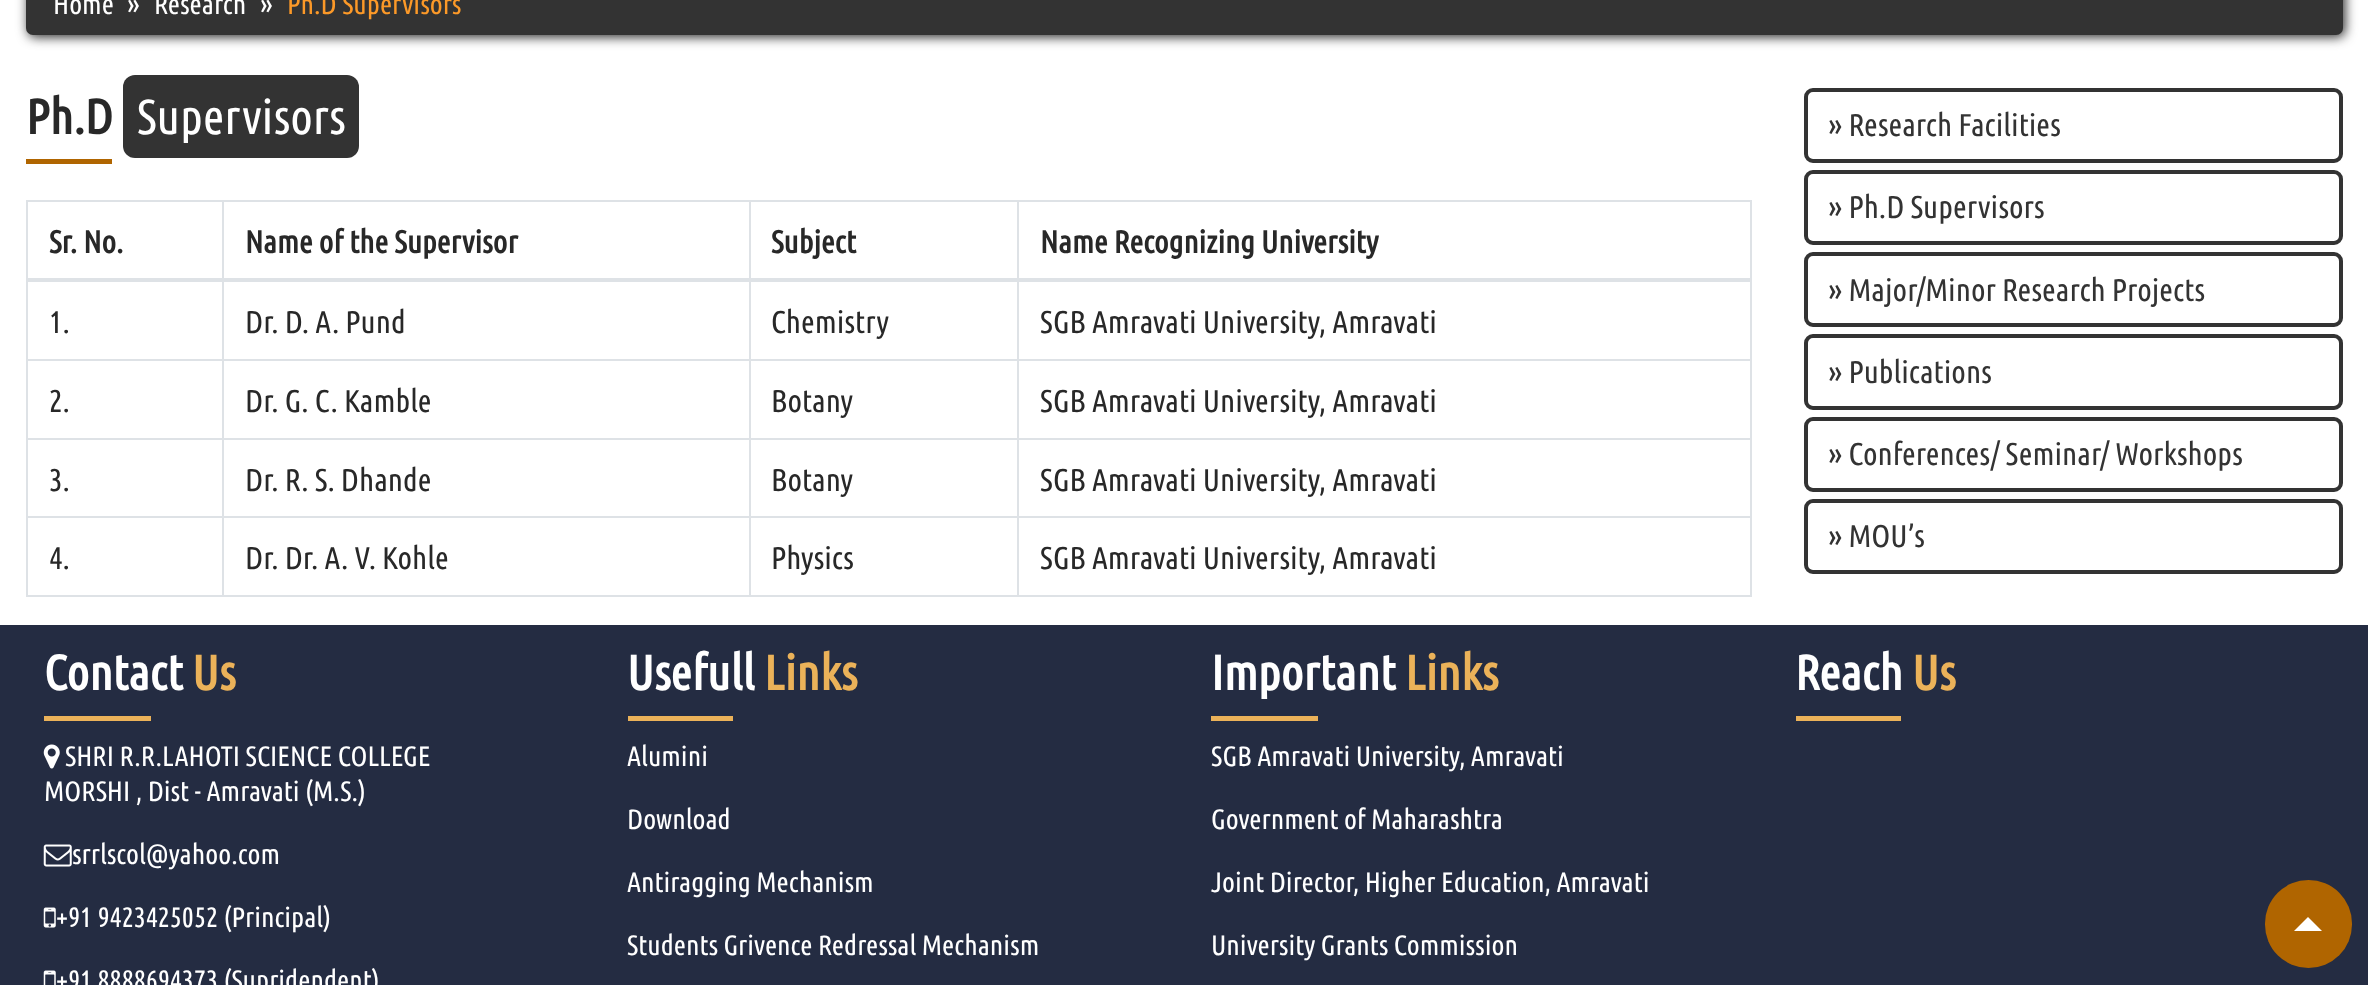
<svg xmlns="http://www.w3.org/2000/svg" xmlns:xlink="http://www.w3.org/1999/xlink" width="2368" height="985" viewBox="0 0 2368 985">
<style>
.cls-1{font:28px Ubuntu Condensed;fill:#ffffff}
.cls-2{font:28px Ubuntu Condensed;fill:#fc9928}
.cls-3{font:bold 49px Ubuntu Condensed;fill:#282828}
.cls-4{font:49px Ubuntu Condensed;fill:#ffffff}
.cls-5{font:bold 31.5px Ubuntu Condensed;fill:#282828}
.cls-6{font:31.5px Ubuntu Condensed;fill:#282828}
.cls-7{font:31.5px Ubuntu Condensed;fill:#333333}
.cls-8{font:bold 49px Ubuntu Condensed;fill:#ffffff}
.cls-9{font:bold 49px Ubuntu Condensed;fill:#ebb259}
</style>
<rect width="100%" height="100%" fill="#ffffff"/>
<rect fill="#282828" filter="blur(6px)" x="28" y="-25" width="2317" height="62" rx="7"/>
<rect fill="#333333" x="26" y="-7" width="2317" height="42" rx="7"/>
<rect fill="#333333" x="123" y="75" width="236" height="83" rx="12"/>
<rect fill="#b06500" x="26" y="159" width="86" height="5"/>
<rect fill="#dee2e6" x="26" y="200" width="1726" height="2"/>
<rect fill="#dee2e6" x="1750" y="200" width="2" height="397"/>
<rect fill="#dee2e6" x="26" y="595" width="1726" height="2"/>
<rect fill="#dee2e6" x="26" y="200" width="2" height="397"/>
<rect fill="#dee2e6" x="1017" y="359" width="735" height="2"/>
<rect fill="#dee2e6" x="1017" y="438" width="735" height="2"/>
<rect fill="#dee2e6" x="1017" y="516" width="735" height="2"/>
<rect fill="#dee2e6" x="1017" y="516" width="2" height="81"/>
<rect fill="#dee2e6" x="749" y="516" width="270" height="2"/>
<rect fill="#dee2e6" x="1017" y="438" width="2" height="80"/>
<rect fill="#dee2e6" x="749" y="438" width="270" height="2"/>
<rect fill="#dee2e6" x="1017" y="359" width="2" height="80"/>
<rect fill="#dee2e6" x="749" y="359" width="270" height="2"/>
<rect fill="#dee2e6" x="749" y="516" width="2" height="81"/>
<rect fill="#dee2e6" x="222" y="516" width="529" height="2"/>
<rect fill="#dee2e6" x="749" y="438" width="2" height="80"/>
<rect fill="#dee2e6" x="222" y="438" width="529" height="2"/>
<rect fill="#dee2e6" x="749" y="359" width="2" height="80"/>
<rect fill="#dee2e6" x="222" y="359" width="529" height="2"/>
<rect fill="#dee2e6" x="222" y="516" width="2" height="81"/>
<rect fill="#dee2e6" x="26" y="516" width="198" height="2"/>
<rect fill="#dee2e6" x="222" y="438" width="2" height="80"/>
<rect fill="#dee2e6" x="26" y="438" width="198" height="2"/>
<rect fill="#dee2e6" x="222" y="359" width="2" height="80"/>
<rect fill="#dee2e6" x="26" y="359" width="198" height="2"/>
<rect fill="#dee2e6" x="222" y="200" width="2" height="161"/>
<rect fill="#dee2e6" x="749" y="200" width="2" height="161"/>
<rect fill="#dee2e6" x="1017" y="200" width="2" height="161"/>
<rect fill="#dee2e6" x="26" y="278" width="1726" height="4"/>
<rect fill="none" stroke="#333333" stroke-width="4" x="1806" y="90" width="535" height="71" rx="7"/>
<rect fill="none" stroke="#333333" stroke-width="4" x="1806" y="172" width="535" height="71" rx="7"/>
<rect fill="none" stroke="#333333" stroke-width="4" x="1806" y="254" width="535" height="71" rx="7"/>
<rect fill="none" stroke="#333333" stroke-width="4" x="1806" y="336" width="535" height="72" rx="7"/>
<rect fill="none" stroke="#333333" stroke-width="4" x="1806" y="419" width="535" height="71" rx="7"/>
<rect fill="none" stroke="#333333" stroke-width="4" x="1806" y="501" width="535" height="71" rx="7"/>
<rect fill="#242c42" x="0" y="625" width="2368" height="360"/>
<rect fill="#ebb259" x="44" y="716" width="107" height="5"/>
<image xlink:href="image0.png" x="43" y="744" width="17" height="25"/>
<image xlink:href="image1.png" x="43" y="844" width="29" height="23"/>
<image xlink:href="image2.png" x="43" y="907" width="13" height="21"/>
<image xlink:href="image3.png" x="43" y="970" width="13" height="15"/>
<rect fill="#ebb259" x="628" y="716" width="105" height="5"/>
<rect fill="#ebb259" x="1211" y="716" width="107" height="5"/>
<rect fill="#ebb259" x="1796" y="716" width="105" height="5"/>
<rect fill="#b06500" x="2265" y="880" width="87" height="88" rx="43.5"/>
<path fill="#ffffff" d="M2322 931H2294L2308 917Z"/>
<text class="cls-1" x="53" y="14">Home</text>
<text class="cls-1" x="127" y="14">»</text>
<text class="cls-1" x="154" y="14">Research</text>
<text class="cls-1" x="260" y="14">»</text>
<text class="cls-2" x="287" y="14">Ph.D Supervisors</text>
<text class="cls-3" x="26" y="134">Ph.D</text>
<text class="cls-4" x="137" y="134">Supervisors</text>
<text class="cls-5" x="49" y="253">Sr. No.</text>
<text class="cls-5" x="245" y="253">Name of the Supervisor</text>
<text class="cls-5" x="771" y="253">Subject</text>
<text class="cls-5" x="1040" y="253">Name Recognizing University</text>
<text class="cls-6" x="49" y="333">1.</text>
<text class="cls-6" x="245" y="333">Dr. D. A. Pund</text>
<text class="cls-6" x="771" y="333">Chemistry</text>
<text class="cls-6" x="1040" y="333">SGB Amravati University, Amravati</text>
<text class="cls-6" x="49" y="412">2.</text>
<text class="cls-6" x="245" y="412">Dr. G. C. Kamble</text>
<text class="cls-6" x="771" y="412">Botany</text>
<text class="cls-6" x="1040" y="412">SGB Amravati University, Amravati</text>
<text class="cls-6" x="49" y="491">3.</text>
<text class="cls-6" x="245" y="491">Dr. R. S. Dhande</text>
<text class="cls-6" x="771" y="491">Botany</text>
<text class="cls-6" x="1040" y="491">SGB Amravati University, Amravati</text>
<text class="cls-6" x="49" y="569">4.</text>
<text class="cls-6" x="245" y="569">Dr. Dr. A. V. Kohle</text>
<text class="cls-6" x="771" y="569">Physics</text>
<text class="cls-6" x="1040" y="569">SGB Amravati University, Amravati</text>
<text class="cls-7" x="1828" y="136">» Research Facilities</text>
<text class="cls-7" x="1828" y="218">» Ph.D Supervisors</text>
<text class="cls-7" x="1828" y="301">» Major/Minor Research Projects</text>
<text class="cls-7" x="1828" y="383">» Publications</text>
<text class="cls-7" x="1828" y="465">» Conferences/ Seminar/ Workshops</text>
<text class="cls-7" x="1828" y="547">» MOU’s</text>
<text class="cls-8" x="44" y="690">Contact</text>
<text class="cls-9" x="192" y="690">Us</text>
<text class="cls-1" x="65" y="766">SHRI R.R.LAHOTI SCIENCE COLLEGE</text>
<text class="cls-1" x="44" y="801">MORSHI , Dist - Amravati (M.S.)</text>
<text class="cls-1" x="72" y="864">srrlscol@yahoo.com</text>
<text class="cls-1" x="56" y="927">+91 9423425052 (Principal)</text>
<text class="cls-1" x="56" y="990">+91 8888694373 (Supridendent)</text>
<text class="cls-8" x="627" y="690">Usefull</text>
<text class="cls-9" x="764" y="690">Links</text>
<text class="cls-1" x="627" y="766">Alumini</text>
<text class="cls-1" x="627" y="829">Download</text>
<text class="cls-1" x="627" y="892">Antiragging Mechanism</text>
<text class="cls-1" x="627" y="955">Students Grivence Redressal Mechanism</text>
<text class="cls-8" x="1211" y="690">Important</text>
<text class="cls-9" x="1405" y="690">Links</text>
<text class="cls-1" x="1211" y="766">SGB Amravati University, Amravati</text>
<text class="cls-1" x="1211" y="829">Government of Maharashtra</text>
<text class="cls-1" x="1211" y="892">Joint Director, Higher Education, Amravati</text>
<text class="cls-1" x="1211" y="955">University Grants Commission</text>
<text class="cls-8" x="1795" y="690">Reach</text>
<text class="cls-9" x="1912" y="690">Us</text>
</svg>
